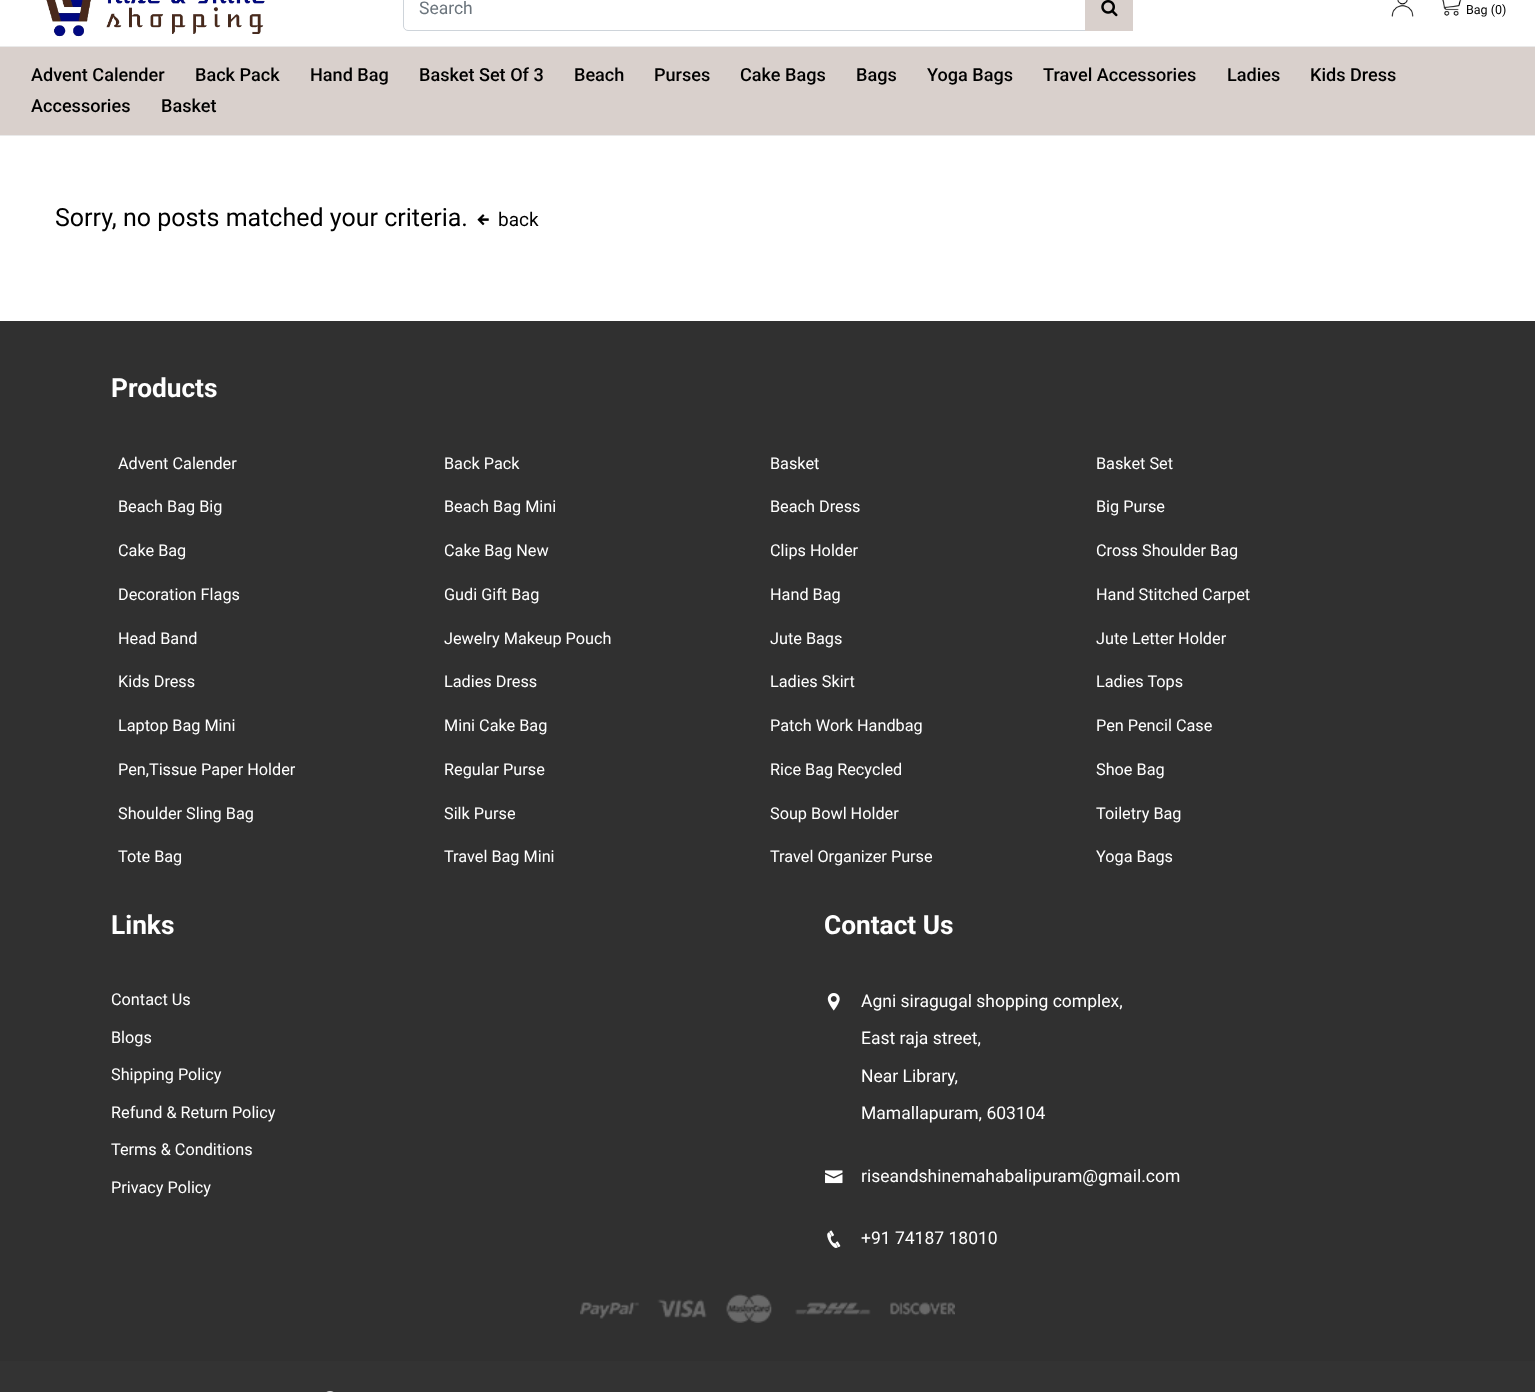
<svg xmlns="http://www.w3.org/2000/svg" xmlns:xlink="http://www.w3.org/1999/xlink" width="1535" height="1392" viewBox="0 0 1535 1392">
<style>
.cls-1{font:17.5px Roboto;fill:#6c757d}
.cls-2{font:12.5px Roboto;fill:#000000}
.cls-3{font:500 18.1px Roboto;fill:#000000}
.cls-4{font:25px Roboto;fill:#000000}
.cls-5{font:19px Roboto;fill:#000000}
.cls-6{font:bold 26.25px Roboto;fill:#ffffff}
.cls-7{font:16.25px Roboto;fill:#ffffff}
.cls-8{font:17.5px Roboto;fill:#ffffff}
</style>
<rect width="100%" height="100%" fill="#ffffff"/>
<image xlink:href="image0.png" x="46" y="0" width="219" height="37"/>
<rect fill="none" stroke="#ced4da" x="403.5" y="-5.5" width="729" height="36" rx="4.5"/>
<rect fill="#d9d0cc" x="1085" y="0" width="48" height="31"/>
<image xlink:href="image1.png" x="1101" y="0" width="17" height="17"/>
<image xlink:href="image2.png" x="1391" y="0" width="23" height="17"/>
<image xlink:href="image3.png" x="1442" y="0" width="20" height="16"/>
<rect fill="#d9d0cc" x="0" y="47" width="1535" height="88"/>
<rect fill="#eaeaea" x="0" y="46" width="1535" height="1"/>
<rect fill="#eaeaea" x="0" y="135" width="1535" height="1"/>
<image xlink:href="image4.png" x="477" y="214" width="12" height="12"/>
<rect fill="#303030" x="0" y="321" width="1535" height="1040"/>
<image xlink:href="image5.png" x="827" y="993" width="13" height="18"/>
<image xlink:href="image6.png" x="825" y="1170" width="18" height="14"/>
<image xlink:href="image7.png" x="827" y="1230" width="14" height="18"/>
<image xlink:href="image8.png" x="580" y="1294" width="375" height="29"/>
<rect fill="#333333" x="0" y="1361" width="1535" height="31"/>
<image xlink:href="image9.png" x="326" y="1391" width="8" height="1"/>
<text class="cls-1" x="419" y="14">Search</text>
<text class="cls-2" x="1466" y="14">Bag (0)</text>
<text class="cls-3" x="31" y="81">Advent Calender</text>
<text class="cls-3" x="195" y="81">Back Pack</text>
<text class="cls-3" x="310" y="81">Hand Bag</text>
<text class="cls-3" x="419" y="81">Basket Set Of 3</text>
<text class="cls-3" x="574" y="81">Beach</text>
<text class="cls-3" x="654" y="81">Purses</text>
<text class="cls-3" x="740" y="81">Cake Bags</text>
<text class="cls-3" x="856" y="81">Bags</text>
<text class="cls-3" x="927" y="81">Yoga Bags</text>
<text class="cls-3" x="1043" y="81">Travel Accessories</text>
<text class="cls-3" x="1227" y="81">Ladies</text>
<text class="cls-3" x="1310" y="81">Kids Dress</text>
<text class="cls-3" x="31" y="112">Accessories</text>
<text class="cls-3" x="161" y="112">Basket</text>
<text class="cls-4" x="55" y="226">Sorry, no posts matched your criteria.</text>
<text class="cls-5" x="498" y="226">back</text>
<text class="cls-6" x="111" y="397">Products</text>
<text class="cls-7" x="118" y="469">Advent Calender</text>
<text class="cls-7" x="444" y="469">Back Pack</text>
<text class="cls-7" x="770" y="469">Basket</text>
<text class="cls-7" x="1096" y="469">Basket Set</text>
<text class="cls-7" x="118" y="512">Beach Bag Big</text>
<text class="cls-7" x="444" y="512">Beach Bag Mini</text>
<text class="cls-7" x="770" y="512">Beach Dress</text>
<text class="cls-7" x="1096" y="512">Big Purse</text>
<text class="cls-7" x="118" y="556">Cake Bag</text>
<text class="cls-7" x="444" y="556">Cake Bag New</text>
<text class="cls-7" x="770" y="556">Clips Holder</text>
<text class="cls-7" x="1096" y="556">Cross Shoulder Bag</text>
<text class="cls-7" x="118" y="600">Decoration Flags</text>
<text class="cls-7" x="444" y="600">Gudi Gift Bag</text>
<text class="cls-7" x="770" y="600">Hand Bag</text>
<text class="cls-7" x="1096" y="600">Hand Stitched Carpet</text>
<text class="cls-7" x="118" y="644">Head Band</text>
<text class="cls-7" x="444" y="644">Jewelry Makeup Pouch</text>
<text class="cls-7" x="770" y="644">Jute Bags</text>
<text class="cls-7" x="1096" y="644">Jute Letter Holder</text>
<text class="cls-7" x="118" y="687">Kids Dress</text>
<text class="cls-7" x="444" y="687">Ladies Dress</text>
<text class="cls-7" x="770" y="687">Ladies Skirt</text>
<text class="cls-7" x="1096" y="687">Ladies Tops</text>
<text class="cls-7" x="118" y="731">Laptop Bag Mini</text>
<text class="cls-7" x="444" y="731">Mini Cake Bag</text>
<text class="cls-7" x="770" y="731">Patch Work Handbag</text>
<text class="cls-7" x="1096" y="731">Pen Pencil Case</text>
<text class="cls-7" x="118" y="775">Pen,Tissue Paper Holder</text>
<text class="cls-7" x="444" y="775">Regular Purse</text>
<text class="cls-7" x="770" y="775">Rice Bag Recycled</text>
<text class="cls-7" x="1096" y="775">Shoe Bag</text>
<text class="cls-7" x="118" y="819">Shoulder Sling Bag</text>
<text class="cls-7" x="444" y="819">Silk Purse</text>
<text class="cls-7" x="770" y="819">Soup Bowl Holder</text>
<text class="cls-7" x="1096" y="819">Toiletry Bag</text>
<text class="cls-7" x="118" y="862">Tote Bag</text>
<text class="cls-7" x="444" y="862">Travel Bag Mini</text>
<text class="cls-7" x="770" y="862">Travel Organizer Purse</text>
<text class="cls-7" x="1096" y="862">Yoga Bags</text>
<text class="cls-6" x="111" y="934">Links</text>
<text class="cls-7" x="111" y="1005">Contact Us</text>
<text class="cls-7" x="111" y="1043">Blogs</text>
<text class="cls-7" x="111" y="1080">Shipping Policy</text>
<text class="cls-7" x="111" y="1118">Refund &amp; Return Policy</text>
<text class="cls-7" x="111" y="1155">Terms &amp; Conditions</text>
<text class="cls-7" x="111" y="1193">Privacy Policy</text>
<text class="cls-6" x="824" y="934">Contact Us</text>
<text class="cls-8" x="861" y="1007">Agni siragugal shopping complex,</text>
<text class="cls-8" x="861" y="1044">East raja street,</text>
<text class="cls-8" x="861" y="1082">Near Library,</text>
<text class="cls-8" x="861" y="1119">Mamallapuram, 603104</text>
<text class="cls-8" x="861" y="1182">riseandshinemahabalipuram@gmail.com</text>
<text class="cls-8" x="861" y="1244">+91 74187 18010</text>
</svg>
